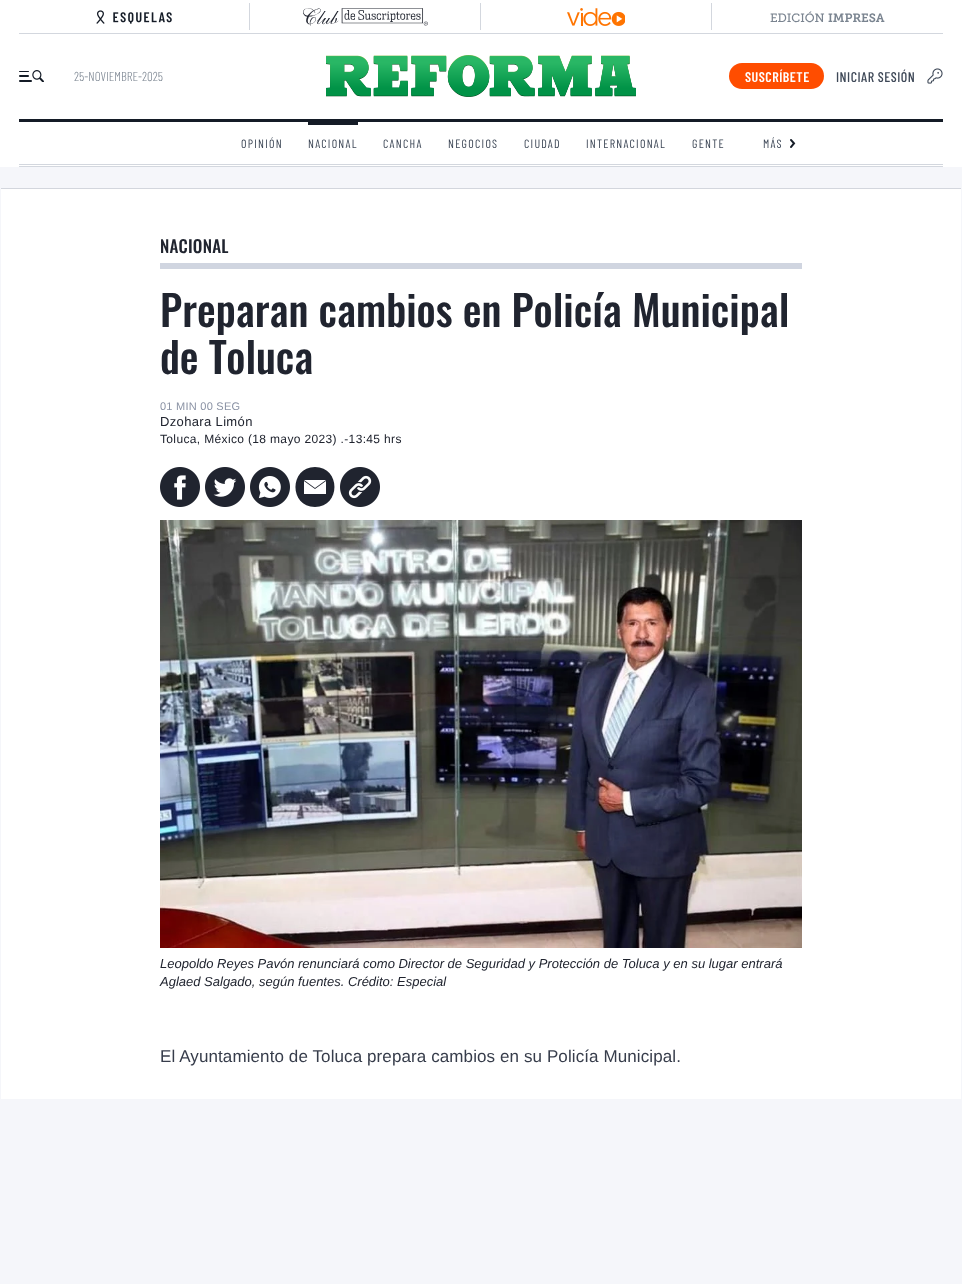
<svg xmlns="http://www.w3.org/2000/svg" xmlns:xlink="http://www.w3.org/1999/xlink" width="977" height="1284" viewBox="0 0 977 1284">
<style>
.cls-1{font:12px Museo Slab;fill:#7a8490}
.cls-2{font:600 12px Museo Slab;fill:#7a8490}
.cls-3{font:300 13px Barlow Condensed;fill:#7a8490}
.cls-4{font:600 14px Barlow Condensed;letter-spacing:0.5px;fill:#ffffff}
.cls-5{font:500 14px Barlow Condensed;letter-spacing:0.5px;fill:#3e4857}
.cls-6{font:12px Barlow Condensed;letter-spacing:1.25px;fill:#3e4857}
.cls-7{font:500 17px Oswald;letter-spacing:0.25px;fill:#20242f}
.cls-8{font:500 42px Oswald;fill:#20242f}
.cls-9{font:11px Liberation Sans;letter-spacing:0.25px;fill:#8991a3}
.cls-10{font:13px Liberation Sans;letter-spacing:0.35px;fill:#20242f}
.cls-11{font:12px Liberation Sans;letter-spacing:0.35px;fill:#20242f}
.cls-12{font:italic 13px Liberation Sans;fill:#20242f}
.cls-13{font:17px Liberation Sans;letter-spacing:0.1px;fill:#373d4b}
</style>
<rect width="100%" height="100%" fill="#ffffff"/>
<rect fill="#d3d7de" x="19" y="33" width="924" height="1"/>
<rect fill="#d3d7de" x="249" y="3" width="1" height="27"/>
<image xlink:href="image0.png" x="96" y="10" width="76" height="14"/>
<rect fill="#d3d7de" x="480" y="3" width="1" height="27"/>
<image xlink:href="image1.png" x="303" y="8" width="125" height="18"/>
<rect fill="#d3d7de" x="711" y="3" width="1" height="27"/>
<image xlink:href="image2.png" x="567" y="8" width="58" height="18"/>
<rect fill="#141b26" x="19" y="119" width="924" height="3"/>
<image xlink:href="image3.png" x="19" y="70" width="25" height="12"/>
<image xlink:href="image4.png" x="326" y="55" width="310" height="42"/>
<rect fill="#ff4d00" x="729" y="63" width="95" height="26" rx="13"/>
<image xlink:href="image5.png" x="927" y="68" width="16" height="16"/>
<rect fill="#d3d7de" x="19" y="164" width="924" height="1"/>
<rect fill="#d3d7de" x="19" y="166" width="924" height="1"/>
<rect fill="#141b26" x="308" y="122" width="50" height="3"/>
<image xlink:href="image6.png" x="790" y="139" width="6" height="9"/>
<rect fill="#f5f6fa" x="0" y="167" width="962" height="1117"/>
<rect fill="#ffffff" x="1" y="189" width="960" height="910"/>
<rect fill="#d3d6dd" x="1" y="188" width="960" height="1"/>
<rect fill="#d0d5e0" x="160" y="263" width="642" height="6"/>
<image xlink:href="image7.png" x="160" y="467" width="40" height="40"/>
<image xlink:href="image8.png" x="205" y="467" width="40" height="40"/>
<image xlink:href="image9.png" x="250" y="467" width="40" height="40"/>
<path fill="#20242f" d="M315 467C289 467 289 507 315 507C341 507 341 467 315 467ZM326 494H304V481L315 489L326 481ZM315 488L304 480H326Z"/>
<image xlink:href="image10.png" x="340" y="467" width="40" height="40"/>
<image xlink:href="image11.png" x="160" y="520" width="642" height="428"/>
<text class="cls-1" x="770" y="22">EDICIÓN</text>
<text class="cls-2" x="828" y="22">IMPRESA</text>
<text class="cls-3" x="74" y="81">25-NOVIEMBRE-2025</text>
<text class="cls-4" x="745" y="82">SUSCRÍBETE</text>
<text class="cls-5" x="836" y="82">INICIAR SESIÓN</text>
<text class="cls-6" x="241" y="148">OPINIÓN</text>
<text class="cls-6" x="308" y="148">NACIONAL</text>
<text class="cls-6" x="383" y="148">CANCHA</text>
<text class="cls-6" x="448" y="148">NEGOCIOS</text>
<text class="cls-6" x="524" y="148">CIUDAD</text>
<text class="cls-6" x="586" y="148">INTERNACIONAL</text>
<text class="cls-6" x="692" y="148">GENTE</text>
<text class="cls-6" x="763" y="148">MÁS</text>
<text class="cls-7" x="160" y="253">NACIONAL</text>
<text class="cls-8"><tspan x="160" y="327">Preparan cambios en Policía Municipal</tspan><tspan x="160" y="374">de Toluca</tspan></text>
<text class="cls-9" x="160" y="410">01 MIN 00 SEG</text>
<text class="cls-10" x="160" y="426">Dzohara Limón</text>
<text class="cls-11" x="160" y="443">Toluca, México (18 mayo 2023) .-13:45 hrs</text>
<text class="cls-12"><tspan x="160" y="968">Leopoldo Reyes Pavón renunciará como Director de Seguridad y Protección de Toluca y en su lugar entrará</tspan><tspan x="160" y="986">Aglaed Salgado, según fuentes. Crédito: Especial</tspan></text>
<text class="cls-13" x="160" y="1062">El Ayuntamiento de Toluca prepara cambios en su Policía Municipal.</text>
</svg>
